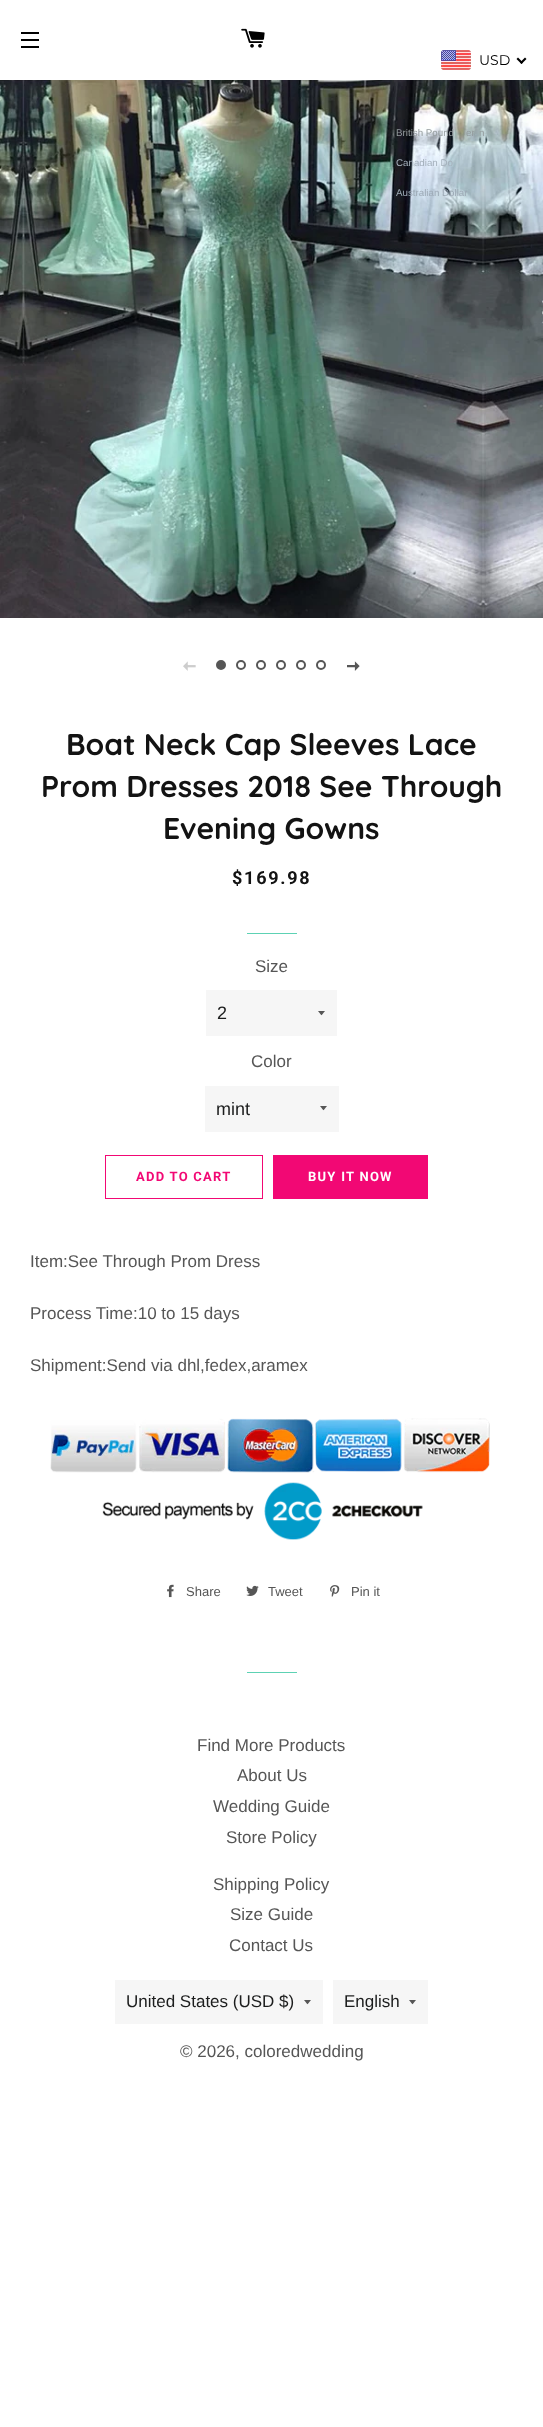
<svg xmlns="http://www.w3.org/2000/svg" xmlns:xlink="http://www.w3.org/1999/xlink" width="543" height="2427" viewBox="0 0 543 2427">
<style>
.cls-1{font:14px Montserrat;fill:#000000}
.cls-2{font:9.75px Liberation Sans;fill:#939b9d}
.cls-3{font:9.75px Liberation Sans;fill:#a4b0bb}
.cls-4{font:9.75px Liberation Sans;fill:#9ca9b5}
.cls-5{font:bold 30px Quicksand;fill:#131313}
.cls-6{font:bold 18px Roboto;letter-spacing:1.75px;fill:#131313}
.cls-7{font:17px Liberation Sans;fill:#565656}
.cls-8{font:18px Liberation Sans;fill:#1c1d1d}
.cls-9{font:bold 13px Roboto;letter-spacing:1.25px;fill:#f20874}
.cls-10{font:bold 13px Roboto;letter-spacing:1.25px;fill:#ffffff}
.cls-11{font:13px Liberation Sans;fill:#565656}
.cls-12{font:17px Liberation Sans;fill:#1c1d1d}
</style>
<rect width="100%" height="100%" fill="#ffffff"/>
<rect fill="#000000" x="21" y="32" width="18" height="2"/>
<rect fill="#000000" x="21" y="39" width="18" height="2"/>
<rect fill="#000000" x="21" y="46" width="18" height="2"/>
<image xlink:href="image0.png" x="241" y="28" width="24" height="20"/>
<image xlink:href="image1.png" x="441" y="50" width="30" height="20"/>
<path fill="#000000" d="M525 57.5L526.5 59L521.5 64L520 62.5Z"/>
<path fill="#000000" d="M518 57.5L523 62.5L521.5 64L516.5 59Z"/>
<image xlink:href="image2.png" x="0" y="80" width="543" height="538"/>
<image xlink:href="image3.png" x="183" y="661" width="13" height="10"/>
<circle fill="#565656" stroke="#565656" stroke-width="2" cx="221" cy="665" r="4"/>
<circle fill="none" stroke="#565656" stroke-width="2" cx="241" cy="665" r="4"/>
<circle fill="none" stroke="#565656" stroke-width="2" cx="261" cy="665" r="4"/>
<circle fill="none" stroke="#565656" stroke-width="2" cx="281" cy="665" r="4"/>
<circle fill="none" stroke="#565656" stroke-width="2" cx="301" cy="665" r="4"/>
<circle fill="none" stroke="#565656" stroke-width="2" cx="321" cy="665" r="4"/>
<image xlink:href="image4.png" x="347" y="661" width="13" height="10"/>
<rect fill="#5dd2b4" x="247" y="933" width="50" height="1"/>
<rect fill="#f6f6f6" x="206" y="990" width="131" height="46"/>
<path fill="#565656" d="M318 1011C322.5 1016.5 320.5 1016.5 325 1011Z"/>
<rect fill="#f6f6f6" x="205" y="1086" width="134" height="46"/>
<path fill="#565656" d="M320 1106C324.5 1111.5 322.5 1111.5 327 1106Z"/>
<rect fill="none" stroke="#f20874" x="105.5" y="1155.5" width="157" height="43"/>
<rect fill="#f20874" x="273" y="1155" width="155" height="44"/>
<image xlink:href="image5.png" x="50" y="1418" width="440" height="122"/>
<image xlink:href="image6.png" x="167" y="1584" width="7" height="14"/>
<image xlink:href="image7.png" x="246" y="1585" width="13" height="11"/>
<image xlink:href="image8.png" x="330" y="1585" width="10" height="12"/>
<rect fill="#5dd2b4" x="247" y="1672" width="50" height="1"/>
<rect fill="#f6f6f6" x="115" y="1980" width="208" height="44"/>
<path fill="#565656" d="M304 2000C308.5 2005.5 306.5 2005.5 311 2000Z"/>
<rect fill="#f6f6f6" x="333" y="1980" width="95" height="44"/>
<path fill="#565656" d="M409 2000C413.5 2005.5 411.5 2005.5 416 2000Z"/>
<text class="cls-1" x="479" y="65">USD</text>
<text class="cls-2" x="396" y="136">British Pound</text>
<text class="cls-2" x="466" y="136">er</text>
<text class="cls-2" x="479" y="136">n</text>
<text class="cls-3" x="396" y="166">Canadian Do</text>
<text class="cls-4" x="396" y="196">Australian Dollar</text>
<text class="cls-5" x="66" y="755">Boat Neck Cap Sleeves Lace</text>
<text class="cls-5" x="41" y="797">Prom Dresses 2018 See Through</text>
<text class="cls-5" x="163" y="839">Evening Gowns</text>
<text class="cls-6" x="232" y="884">$169.98</text>
<text class="cls-7" x="255" y="972">Size</text>
<text class="cls-8" x="217" y="1019">2</text>
<text class="cls-7" x="251" y="1067">Color</text>
<text class="cls-8" x="216" y="1115">mint</text>
<text class="cls-9" x="136" y="1181">ADD TO CART</text>
<text class="cls-10" x="308" y="1181">BUY IT NOW</text>
<text class="cls-7" x="30" y="1267">Item:See Through Prom Dress</text>
<text class="cls-7" x="30" y="1319">Process Time:10 to 15 days</text>
<text class="cls-7" x="30" y="1371">Shipment:Send via dhl,fedex,aramex</text>
<text class="cls-11" x="186" y="1596">Share</text>
<text class="cls-11" x="268" y="1596">Tweet</text>
<text class="cls-11" x="351" y="1596">Pin it</text>
<text class="cls-7" x="197" y="1751">Find More Products</text>
<text class="cls-7" x="237" y="1781">About Us</text>
<text class="cls-7" x="213" y="1812">Wedding Guide</text>
<text class="cls-7" x="226" y="1843">Store Policy</text>
<text class="cls-7" x="213" y="1890">Shipping Policy</text>
<text class="cls-7" x="230" y="1920">Size Guide</text>
<text class="cls-7" x="229" y="1951">Contact Us</text>
<text class="cls-12" x="126" y="2007">United States (USD $)</text>
<text class="cls-12" x="344" y="2007">English</text>
<text class="cls-7" x="180" y="2057">© 2026, coloredwedding</text>
</svg>
